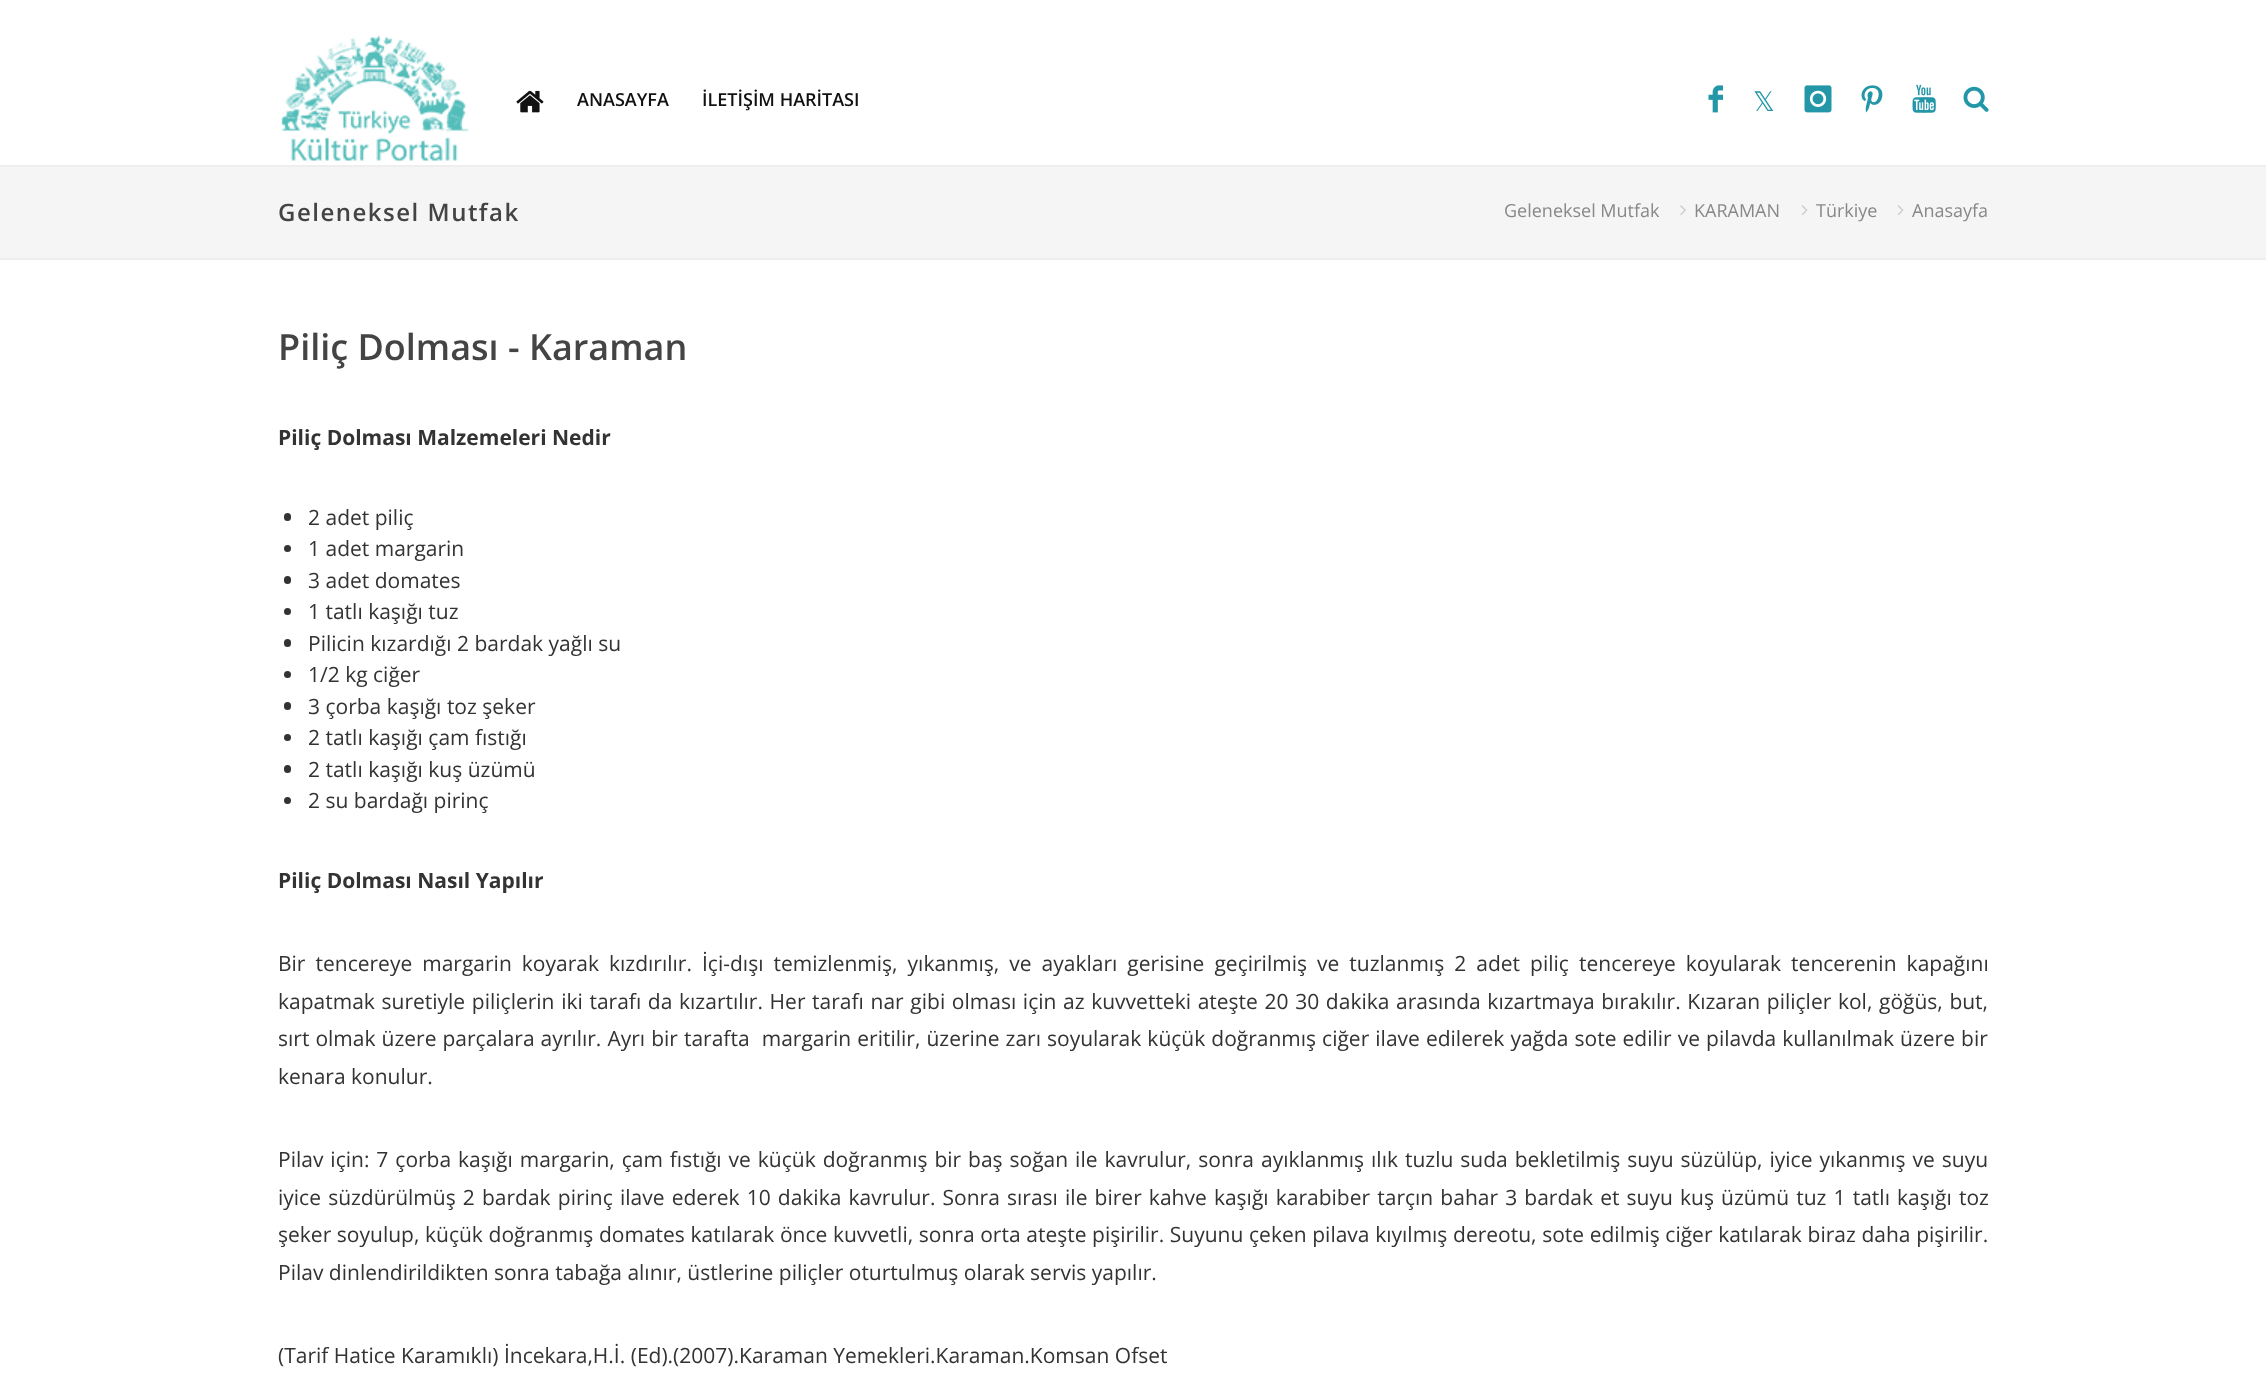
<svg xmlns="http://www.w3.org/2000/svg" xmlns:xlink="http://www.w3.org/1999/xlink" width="2266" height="1373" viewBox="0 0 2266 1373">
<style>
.cls-1{font:600 18px Open Sans;fill:#111111}
.cls-2{font:27px DejaVu Sans;fill:#2397a7}
.cls-3{font:600 24px Open Sans;letter-spacing:1.5px;fill:#444444}
.cls-4{font:18px Open Sans;fill:#888888}
.cls-5{font:600 36px Open Sans;fill:#444444}
.cls-6{font:bold 21px Open Sans;fill:#333333}
.cls-7{font:21px Open Sans;fill:#333333}
</style>
<rect width="100%" height="100%" fill="#ffffff"/>
<rect fill="#eeeeee" x="0" y="165" width="2266" height="2"/>
<image xlink:href="image0.png" x="281" y="35" width="188" height="126"/>
<image xlink:href="image1.png" x="516" y="90" width="28" height="23"/>
<image xlink:href="image2.png" x="1708" y="85" width="15" height="28"/>
<image xlink:href="image3.png" x="1804" y="85" width="28" height="28"/>
<image xlink:href="image4.png" x="1861" y="85" width="22" height="28"/>
<image xlink:href="image5.png" x="1912" y="84" width="24" height="29"/>
<image xlink:href="image6.png" x="1963" y="86" width="26" height="26"/>
<rect fill="#f5f5f5" x="0" y="167" width="2266" height="91"/>
<rect fill="#eeeeee" x="0" y="258" width="2266" height="2"/>
<image xlink:href="image7.png" x="1680" y="205" width="6" height="10"/>
<image xlink:href="image8.png" x="1801" y="205" width="7" height="10"/>
<image xlink:href="image8.png" x="1897" y="205" width="7" height="10"/>
<rect fill="#333333" x="284" y="513" width="7" height="8" rx="3.5"/>
<circle fill="#333333" cx="287.5" cy="548.5" r="3.5"/>
<rect fill="#333333" x="284" y="576" width="7" height="8" rx="3.5"/>
<circle fill="#333333" cx="287.5" cy="611.5" r="3.5"/>
<rect fill="#333333" x="284" y="639" width="7" height="8" rx="3.5"/>
<circle fill="#333333" cx="287.5" cy="674.5" r="3.5"/>
<rect fill="#333333" x="284" y="702" width="7" height="8" rx="3.5"/>
<circle fill="#333333" cx="287.5" cy="737.5" r="3.5"/>
<rect fill="#333333" x="284" y="765" width="7" height="8" rx="3.5"/>
<circle fill="#333333" cx="287.5" cy="800.5" r="3.5"/>
<text class="cls-1" x="577" y="106">ANASAYFA</text>
<text class="cls-1" x="702" y="106">İLETİŞİM HARİTASI</text>
<text class="cls-2" x="1753" y="111">𝕏</text>
<text class="cls-3" x="278" y="221">Geleneksel Mutfak</text>
<text class="cls-4" x="1504" y="217">Geleneksel Mutfak</text>
<text class="cls-4" x="1694" y="217">KARAMAN</text>
<text class="cls-4" x="1816" y="217">Türkiye</text>
<text class="cls-4" x="1912" y="217">Anasayfa</text>
<text class="cls-5" x="278" y="360">Piliç Dolması - Karaman</text>
<text class="cls-6" x="278" y="445">Piliç Dolması Malzemeleri Nedir</text>
<text class="cls-7"><tspan x="308" y="525">2 adet piliç</tspan><tspan x="308" y="556">1 adet margarin</tspan><tspan x="308" y="588">3 adet domates</tspan><tspan x="308" y="619">1 tatlı kaşığı tuz</tspan><tspan x="308" y="651">Pilicin kızardığı 2 bardak yağlı su</tspan><tspan x="308" y="682">1/2 kg ciğer</tspan><tspan x="308" y="714">3 çorba kaşığı toz şeker</tspan><tspan x="308" y="745">2 tatlı kaşığı çam fıstığı</tspan><tspan x="308" y="777">2 tatlı kaşığı kuş üzümü</tspan><tspan x="308" y="808">2 su bardağı pirinç</tspan></text>
<text class="cls-6" x="278" y="888">Piliç Dolması Nasıl Yapılır</text>
<text class="cls-7" xml:space="preserve"><tspan x="278" y="971" word-spacing="4.6">Bir tencereye margarin koyarak kızdırılır. İçi-dışı temizlenmiş, yıkanmış, ve ayakları gerisine geçirilmiş ve tuzlanmış 2 adet piliç tencereye koyularak tencerenin kapağını</tspan><tspan x="278" y="1009" word-spacing="1.2">kapatmak suretiyle piliçlerin iki tarafı da kızartılır. Her tarafı nar gibi olması için az kuvvetteki ateşte 20 30 dakika arasında kızartmaya bırakılır. Kızaran piliçler kol, göğüs, but,</tspan><tspan x="278" y="1046" word-spacing="0.6">sırt olmak üzere parçalara ayrılır. Ayrı bir tarafta  margarin eritilir, üzerine zarı soyularak küçük doğranmış ciğer ilave edilerek yağda sote edilir ve pilavda kullanılmak üzere bir</tspan><tspan x="278" y="1084">kenara konulur.</tspan></text>
<text class="cls-7"><tspan x="278" y="1167" word-spacing="1.5">Pilav için: 7 çorba kaşığı margarin, çam fıstığı ve küçük doğranmış bir baş soğan ile kavrulur, sonra ayıklanmış ılık tuzlu suda bekletilmiş suyu süzülüp, iyice yıkanmış ve suyu</tspan><tspan x="278" y="1205" word-spacing="1.7">iyice süzdürülmüş 2 bardak pirinç ilave ederek 10 dakika kavrulur. Sonra sırası ile birer kahve kaşığı karabiber tarçın bahar 3 bardak et suyu kuş üzümü tuz 1 tatlı kaşığı toz</tspan><tspan x="278" y="1242" word-spacing="0.2">şeker soyulup, küçük doğranmış domates katılarak önce kuvvetli, sonra orta ateşte pişirilir. Suyunu çeken pilava kıyılmış dereotu, sote edilmiş ciğer katılarak biraz daha pişirilir.</tspan><tspan x="278" y="1280">Pilav dinlendirildikten sonra tabağa alınır, üstlerine piliçler oturtulmuş olarak servis yapılır.</tspan></text>
<text class="cls-7" x="278" y="1363">(Tarif Hatice Karamıklı) İncekara,H.İ. (Ed).(2007).Karaman Yemekleri.Karaman.Komsan Ofset</text>
</svg>
